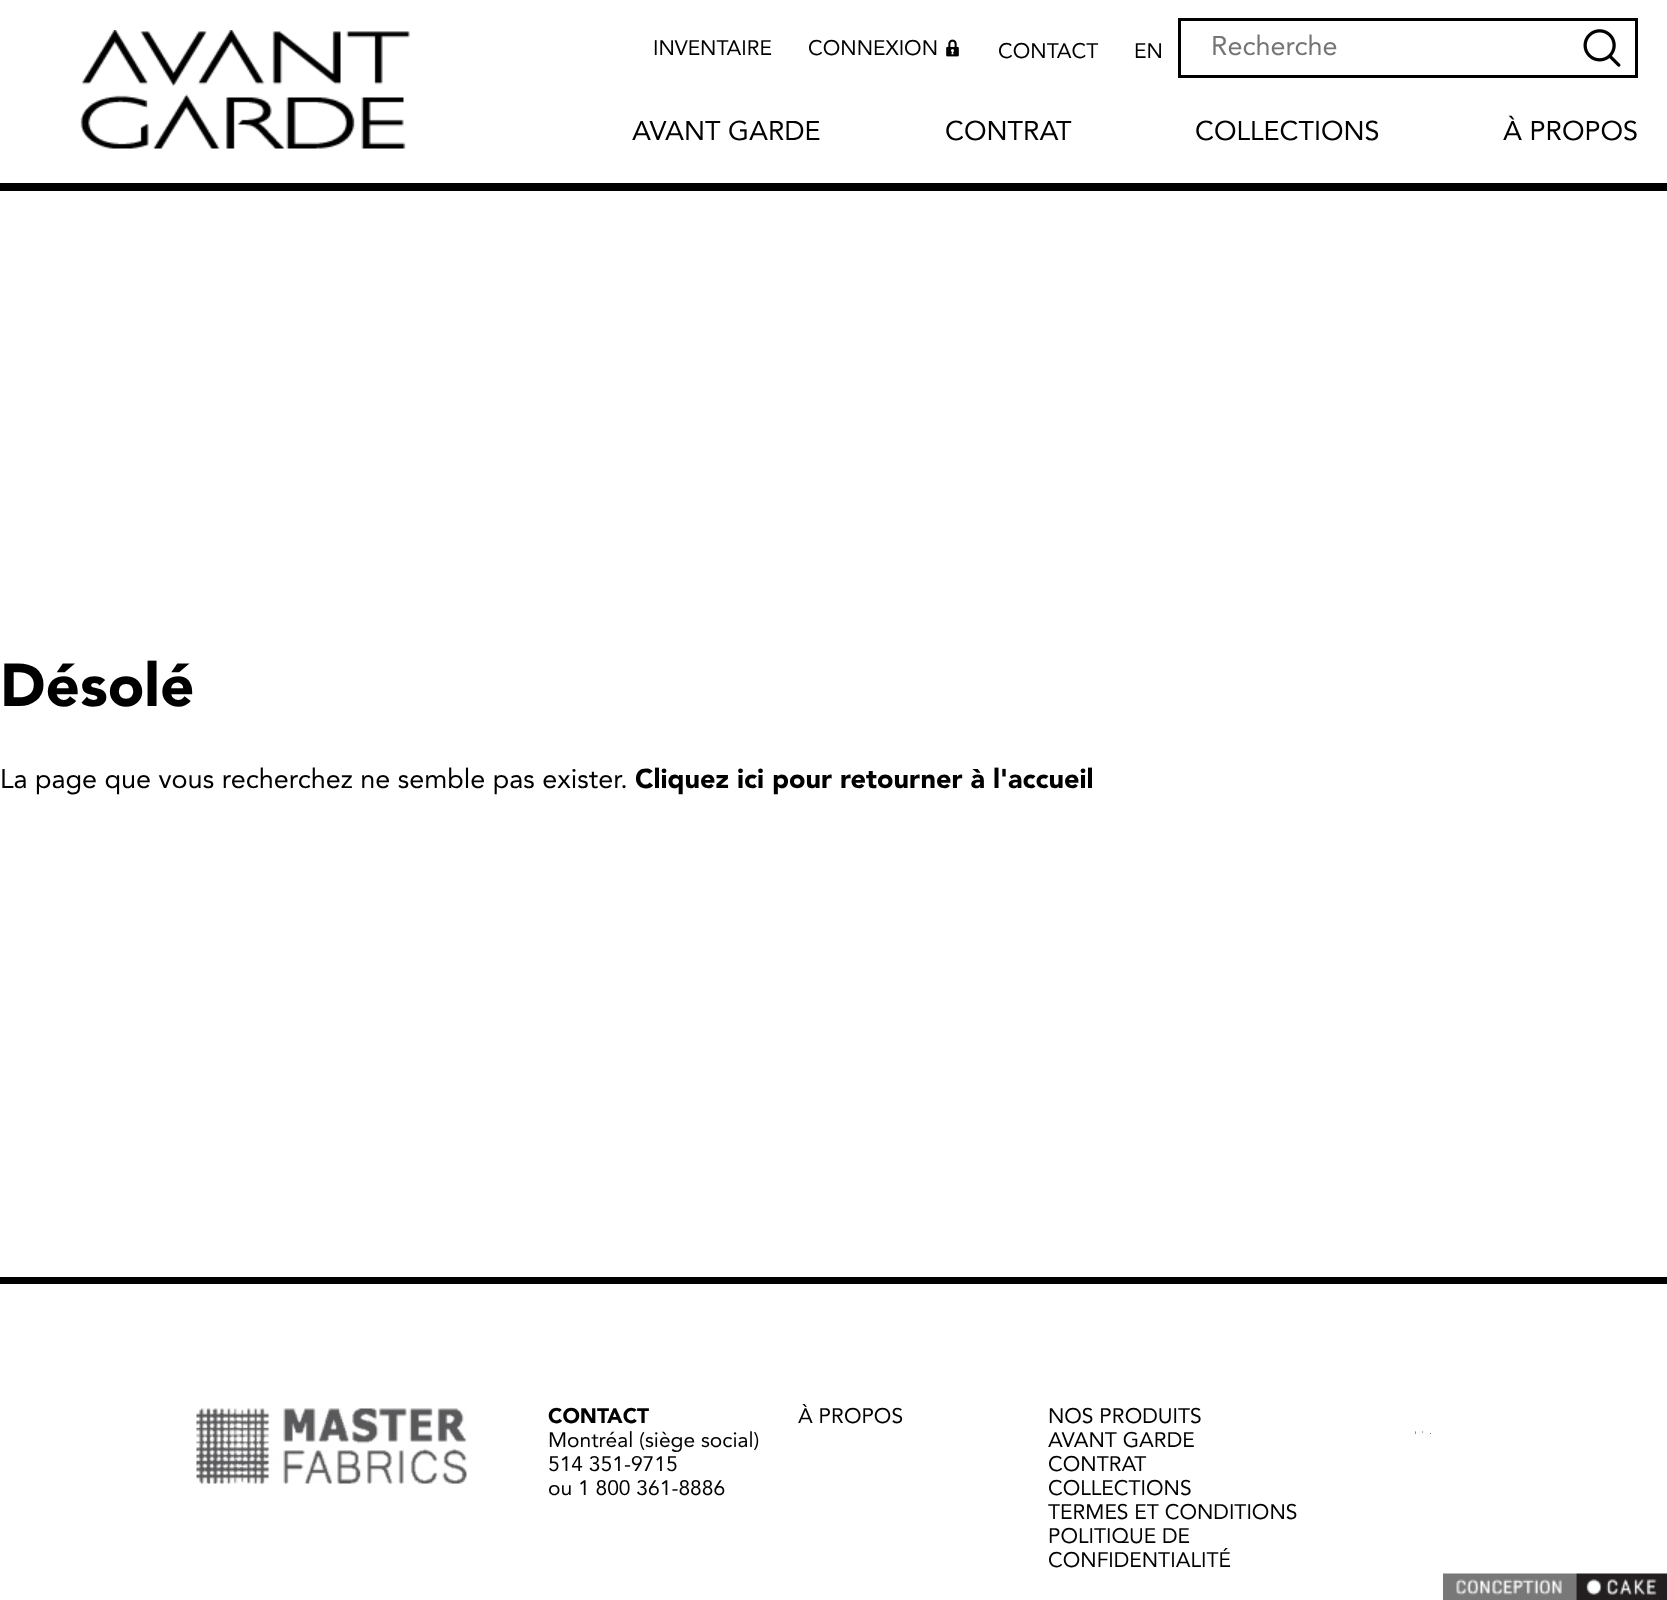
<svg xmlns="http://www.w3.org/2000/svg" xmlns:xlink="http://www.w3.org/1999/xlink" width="1667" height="1600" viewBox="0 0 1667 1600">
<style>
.cls-1{font:21px Avenir;fill:#000000}
.cls-2{font:27px Avenir;fill:#757575}
.cls-3{font:27px Avenir;fill:#000000}
.cls-4{font:900 60px Avenir;fill:#000000}
.cls-5{font:900 27px Avenir;fill:#000000}
.cls-6{font:900 21px Avenir;fill:#000000}
</style>
<rect width="100%" height="100%" fill="#ffffff"/>
<rect fill="#000000" x="0" y="183" width="1667" height="8"/>
<image xlink:href="image0.png" x="80" y="30" width="330" height="119"/>
<image xlink:href="image1.png" x="946" y="39" width="13" height="18"/>
<rect fill="#000000" x="1178" y="18" width="460" height="3"/>
<rect fill="#000000" x="1635" y="18" width="3" height="60"/>
<rect fill="#000000" x="1178" y="75" width="460" height="3"/>
<image xlink:href="image2.png" x="1583" y="29" width="38" height="38"/>
<rect fill="#000000" x="1178" y="18" width="3" height="60"/>
<rect fill="#000000" x="0" y="1277" width="1667" height="7"/>
<image xlink:href="image3.png" x="196" y="1408" width="271" height="76"/>
<image xlink:href="image4.png" x="1415" y="1431" width="1" height="3"/>
<image xlink:href="image5.png" x="1422" y="1431" width="2" height="2"/>
<rect fill="#757575" x="1430" y="1433" width="1" height="1"/>
<image xlink:href="image6.png" x="1443" y="1573" width="224" height="27"/>
<text class="cls-1" x="653" y="55">INVENTAIRE</text>
<text class="cls-1" x="808" y="55">CONNEXION</text>
<text class="cls-1" x="998" y="58">CONTACT</text>
<text class="cls-1" x="1134" y="58">EN</text>
<text class="cls-2" x="1211" y="55">Recherche</text>
<text class="cls-3" x="632" y="140">AVANT GARDE</text>
<text class="cls-3" x="945" y="140">CONTRAT</text>
<text class="cls-3" x="1195" y="140">COLLECTIONS</text>
<text class="cls-3" x="1503" y="140">À PROPOS</text>
<text class="cls-4" x="0" y="706">Désolé</text>
<text class="cls-3" x="0" y="788">La page que vous recherchez ne semble pas exister.</text>
<text class="cls-5" x="635" y="788">Cliquez ici pour retourner à l'accueil</text>
<text class="cls-6" x="548" y="1423">CONTACT</text>
<text class="cls-1"><tspan x="548" y="1447">Montréal (siège social)</tspan><tspan x="548" y="1471">514 351-9715</tspan><tspan x="548" y="1495">ou 1 800 361-8886</tspan></text>
<text class="cls-1" x="798" y="1423">À PROPOS</text>
<text class="cls-1"><tspan x="1048" y="1423">NOS PRODUITS</tspan><tspan x="1048" y="1447">AVANT GARDE</tspan><tspan x="1048" y="1471">CONTRAT</tspan><tspan x="1048" y="1495">COLLECTIONS</tspan><tspan x="1048" y="1519">TERMES ET CONDITIONS</tspan><tspan x="1048" y="1543">POLITIQUE DE</tspan><tspan x="1048" y="1567">CONFIDENTIALITÉ</tspan></text>
</svg>
